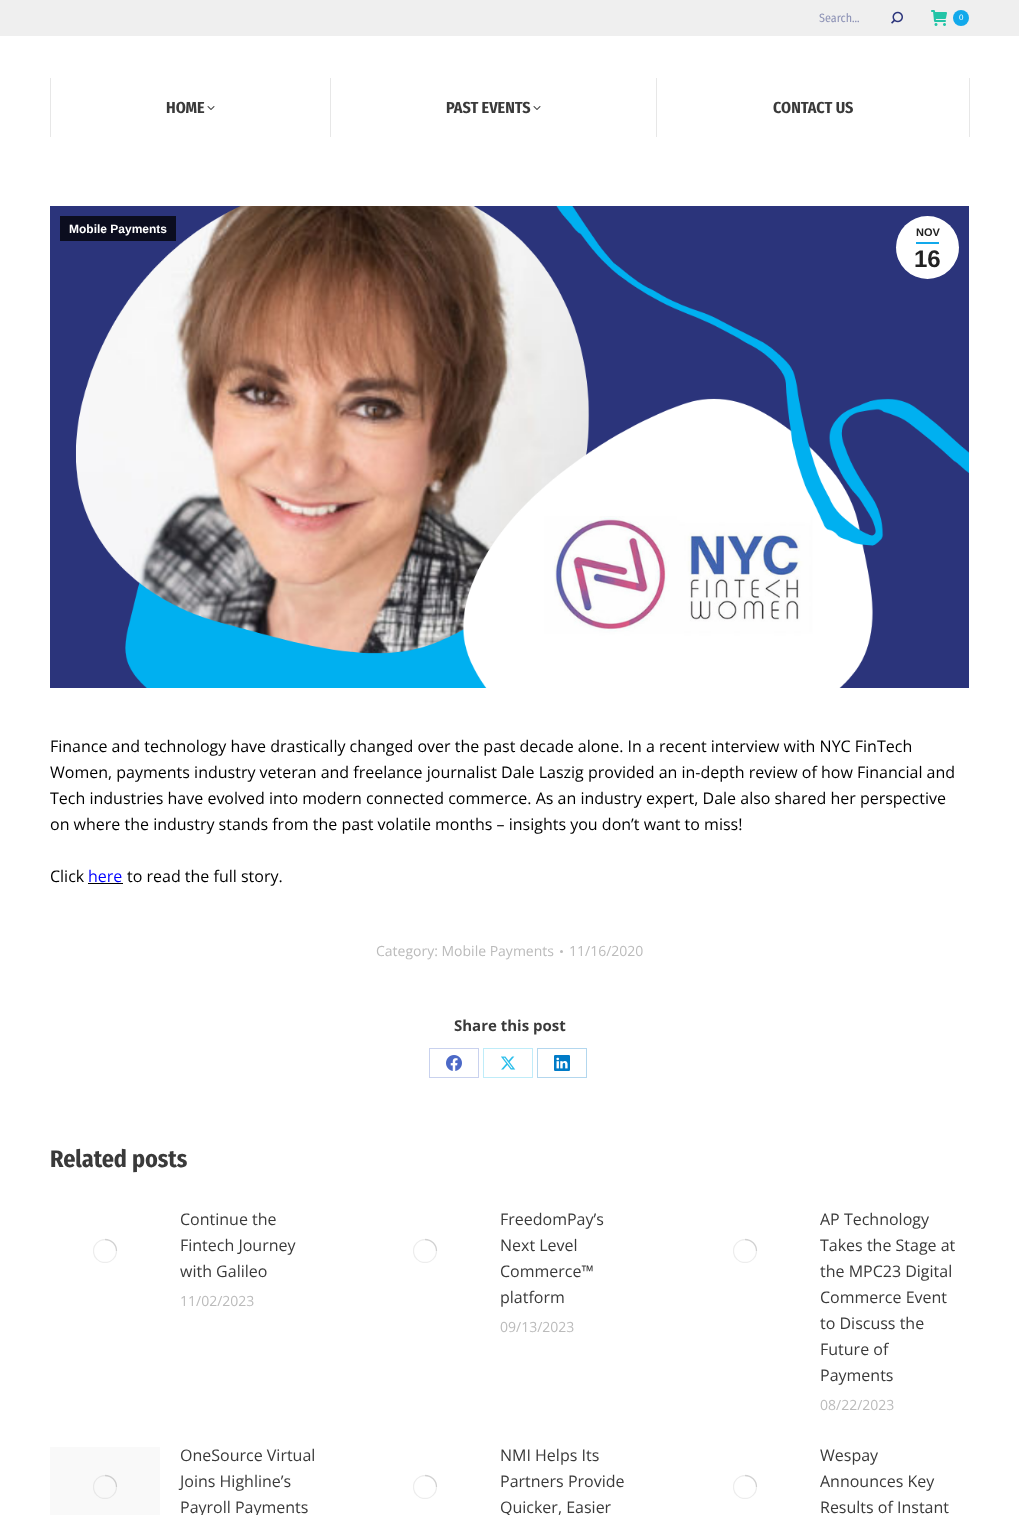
<svg xmlns="http://www.w3.org/2000/svg" xmlns:xlink="http://www.w3.org/1999/xlink" width="1019" height="1515" viewBox="0 0 1019 1515">
<style>
.cls-1{font:12px Fira Sans Condensed;fill:#8e93b6}
.cls-2{font:8px Liberation Sans;fill:#ffffff}
.cls-3{font:bold 16px Fira Sans Condensed;fill:#3a3a3a}
.cls-4{font:bold 12px Liberation Sans;fill:#ffffff}
.cls-5{font:bold 11px Liberation Sans;fill:#222222}
.cls-6{font:bold 24px Liberation Sans;fill:#222222}
.cls-7{font:16px Open Sans;fill:#000000}
.cls-8{font:16px Open Sans;fill:#0000ff}
.cls-9{font:14px Open Sans;fill:#bbbbbb}
.cls-10{font:bold 15px Open Sans;fill:#3a3a3a}
.cls-11{font:bold 24px Fira Sans Condensed;fill:#3a3a3a}
.cls-12{font:16px Open Sans;fill:#3a3a3a}
</style>
<defs>
<clipPath id="clip1"><rect x="93" y="1239" width="24" height="24"/></clipPath>
<clipPath id="clip2"><rect x="413" y="1239" width="24" height="24"/></clipPath>
<clipPath id="clip3"><rect x="733" y="1239" width="24" height="24"/></clipPath>
<clipPath id="clip4"><rect x="93" y="1475" width="24" height="24"/></clipPath>
<clipPath id="clip5"><rect x="413" y="1475" width="24" height="24"/></clipPath>
<clipPath id="clip6"><rect x="733" y="1475" width="24" height="24"/></clipPath>
</defs>
<rect width="100%" height="100%" fill="#ffffff"/>
<rect fill="#efefef" x="0" y="0" width="1019" height="36"/>
<image xlink:href="image0.png" x="891" y="11" width="12" height="13"/>
<image xlink:href="image1.png" x="931" y="10" width="16" height="16"/>
<circle fill="#12a9eb" cx="961" cy="18" r="8"/>
<rect fill="#e7e7e7" x="50" y="78" width="1" height="59"/>
<image xlink:href="image2.png" x="207" y="106" width="8" height="4"/>
<rect fill="#e7e7e7" x="330" y="78" width="1" height="59"/>
<image xlink:href="image2.png" x="533" y="106" width="8" height="4"/>
<rect fill="#e7e7e7" x="656" y="78" width="1" height="59"/>
<rect fill="#e7e7e7" x="969" y="78" width="1" height="59"/>
<image xlink:href="image3.png" x="50" y="206" width="919" height="482"/>
<rect fill="#0b0d1f" x="60" y="216" width="116" height="25"/>
<circle fill="#ffffff" cx="927.5" cy="247.5" r="31.5"/>
<rect fill="#12a9eb" x="916" y="242" width="23" height="2"/>
<rect fill="#000000" x="88" y="883" width="35" height="1"/>
<circle fill="#bbbbbb" cx="561.5" cy="951.5" r="1.5"/>
<rect fill="none" stroke="#c9d2ee" x="429.5" y="1048.5" width="49" height="29"/>
<image xlink:href="image4.png" x="446" y="1055" width="16" height="16"/>
<rect fill="none" stroke="#bfecf9" x="483.5" y="1048.5" width="49" height="29"/>
<image xlink:href="image5.png" x="501" y="1056" width="15" height="14"/>
<rect fill="none" stroke="#b3d7ee" x="537.5" y="1048.5" width="49" height="29"/>
<image xlink:href="image6.png" x="554" y="1055" width="16" height="16"/>
<g clip-path="url(#clip1)">
<circle fill="none" stroke="#ededed" stroke-width="1.3" cx="105" cy="1251" r="11.5"/>
</g>
<path fill="none" stroke="#7e7e7e" stroke-opacity="0.25" stroke-width="1.3" d="M116.5 1251C116.5 1244.5 111.5 1239.5 105 1239.5"/>
<g clip-path="url(#clip2)">
<circle fill="none" stroke="#ededed" stroke-width="1.3" cx="425" cy="1251" r="11.5"/>
</g>
<path fill="none" stroke="#7e7e7e" stroke-opacity="0.25" stroke-width="1.3" d="M436.5 1251C436.5 1244.5 431.5 1239.5 425 1239.5"/>
<g clip-path="url(#clip3)">
<circle fill="none" stroke="#ededed" stroke-width="1.3" cx="745" cy="1251" r="11.5"/>
</g>
<path fill="none" stroke="#7e7e7e" stroke-opacity="0.25" stroke-width="1.3" d="M756.5 1251C756.5 1244.5 751.5 1239.5 745 1239.5"/>
<rect fill="#f9f9f9" x="50" y="1447" width="110" height="68"/>
<g clip-path="url(#clip4)">
<circle fill="none" stroke="#e8e8e8" stroke-width="1.3" cx="105" cy="1487" r="11.5"/>
</g>
<path fill="none" stroke="#7e7e7e" stroke-opacity="0.25" stroke-width="1.3" d="M116.5 1487C116.5 1480.5 111.5 1475.5 105 1475.5"/>
<g clip-path="url(#clip5)">
<circle fill="none" stroke="#ededed" stroke-width="1.3" cx="425" cy="1487" r="11.5"/>
</g>
<path fill="none" stroke="#7e7e7e" stroke-opacity="0.25" stroke-width="1.3" d="M436.5 1487C436.5 1480.5 431.5 1475.5 425 1475.5"/>
<g clip-path="url(#clip6)">
<circle fill="none" stroke="#ededed" stroke-width="1.3" cx="745" cy="1487" r="11.5"/>
</g>
<path fill="none" stroke="#7e7e7e" stroke-opacity="0.25" stroke-width="1.3" d="M756.5 1487C756.5 1480.5 751.5 1475.5 745 1475.5"/>
<text class="cls-1" x="819" y="22">Search...</text>
<text class="cls-2" x="959" y="20">0</text>
<text class="cls-3" x="166" y="113">HOME</text>
<text class="cls-3" x="446" y="113">PAST EVENTS</text>
<text class="cls-3" x="773" y="113">CONTACT US</text>
<text class="cls-4" x="69" y="233">Mobile Payments</text>
<text class="cls-5" x="916" y="236">NOV</text>
<text class="cls-6" x="914" y="267">16</text>
<text class="cls-7"><tspan x="50" y="752">Finance and technology have drastically changed over the past decade alone. In a recent interview with NYC FinTech</tspan><tspan x="50" y="778">Women, payments industry veteran and freelance journalist Dale Laszig provided an in-depth review of how Financial and</tspan><tspan x="50" y="804">Tech industries have evolved into modern connected commerce. As an industry expert, Dale also shared her perspective</tspan><tspan x="50" y="830">on where the industry stands from the past volatile months – insights you don’t want to miss!</tspan></text>
<text class="cls-7" x="50" y="882">Click</text>
<text class="cls-8" x="88" y="882">here</text>
<text class="cls-7" x="127" y="882">to read the full story.</text>
<text class="cls-9" x="376" y="956">Category: Mobile Payments</text>
<text class="cls-9" x="569" y="956">11/16/2020</text>
<text class="cls-10" x="454" y="1031">Share this post</text>
<text class="cls-11" x="50" y="1167">Related posts</text>
<text class="cls-12"><tspan x="180" y="1225">Continue the</tspan><tspan x="180" y="1251">Fintech Journey</tspan><tspan x="180" y="1277">with Galileo</tspan></text>
<text class="cls-9" x="180" y="1306">11/02/2023</text>
<text class="cls-12"><tspan x="500" y="1225">FreedomPay’s</tspan><tspan x="500" y="1251">Next Level</tspan><tspan x="500" y="1277">Commerce™</tspan><tspan x="500" y="1303">platform</tspan></text>
<text class="cls-9" x="500" y="1332">09/13/2023</text>
<text class="cls-12"><tspan x="820" y="1225">AP Technology</tspan><tspan x="820" y="1251">Takes the Stage at</tspan><tspan x="820" y="1277">the MPC23 Digital</tspan><tspan x="820" y="1303">Commerce Event</tspan><tspan x="820" y="1329">to Discuss the</tspan><tspan x="820" y="1355">Future of</tspan><tspan x="820" y="1381">Payments</tspan></text>
<text class="cls-9" x="820" y="1410">08/22/2023</text>
<text class="cls-12"><tspan x="180" y="1461">OneSource Virtual</tspan><tspan x="180" y="1487">Joins Highline’s</tspan><tspan x="180" y="1513">Payroll Payments</tspan></text>
<text class="cls-12"><tspan x="500" y="1461">NMI Helps Its</tspan><tspan x="500" y="1487">Partners Provide</tspan><tspan x="500" y="1513">Quicker, Easier</tspan></text>
<text class="cls-12"><tspan x="820" y="1461">Wespay</tspan><tspan x="820" y="1487">Announces Key</tspan><tspan x="820" y="1513">Results of Instant</tspan></text>
</svg>
